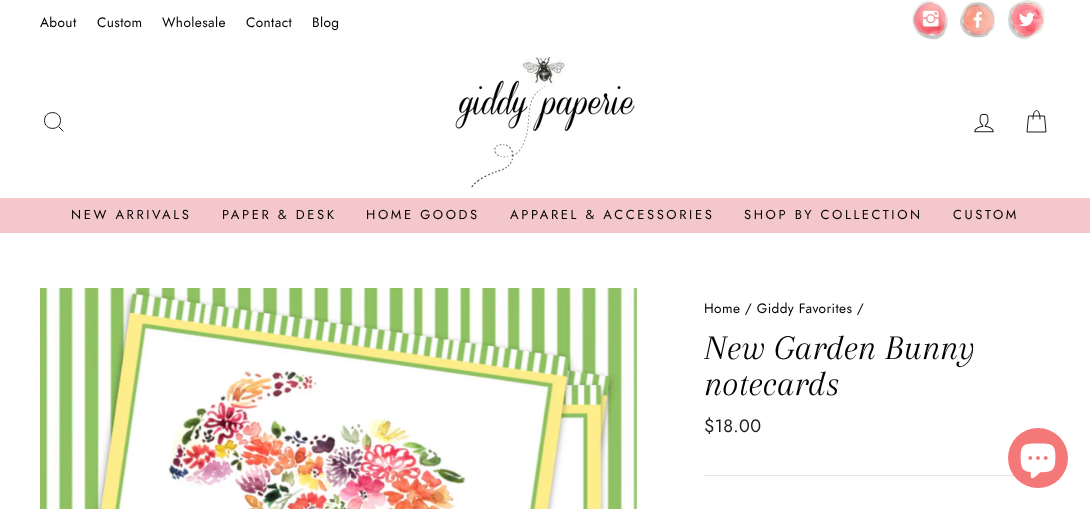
<svg xmlns="http://www.w3.org/2000/svg" xmlns:xlink="http://www.w3.org/1999/xlink" width="1090" height="509" viewBox="0 0 1090 509">
<style>
.cls-1{font:13.6px Jost;letter-spacing:0.4px;fill:#000000}
.cls-2{font:13px Jost;letter-spacing:2.6px;fill:#000000}
.cls-3{font:italic 35.75px Arapey;fill:#000000}
.cls-4{font:18px Jost;letter-spacing:0.4px;fill:#1c1d1d}
</style>
<rect width="100%" height="100%" fill="#ffffff"/>
<image xlink:href="image0.png" x="912" y="0" width="36" height="40"/>
<image xlink:href="image1.png" x="959" y="2" width="37" height="36"/>
<image xlink:href="image2.png" x="1007" y="0" width="38" height="40"/>
<path fill="none" stroke="#000000" stroke-width="0.9" d="M60.5 120.5C60.5 131 44.5 131 44.5 120.5C44.5 110 60.5 110 60.5 120.5ZM63.5 131.5L58.5 126.5"/>
<image xlink:href="image3.png" x="455" y="57" width="180" height="131"/>
<image xlink:href="image4.png" x="974" y="113" width="20" height="20"/>
<path fill="none" stroke="#000000" stroke-width="0.9" d="M1033 119.5C1033 107.5 1040 107.5 1040 119.5M1028.5 116H1044.5L1046 132H1027Z"/>
<rect fill="#f4c7ca" x="0" y="198" width="1090" height="35"/>
<image xlink:href="image5.png" x="40" y="288" width="597" height="221"/>
<rect fill="#e8e8e1" x="704" y="475" width="310" height="1"/>
<circle fill="#f57878" cx="1038" cy="458" r="30"/>
<image xlink:href="image6.png" x="1020" y="443" width="36" height="36"/>
<text class="cls-1" x="40" y="27">About</text>
<text class="cls-1" x="97" y="27">Custom</text>
<text class="cls-1" x="162" y="27">Wholesale</text>
<text class="cls-1" x="246" y="27">Contact</text>
<text class="cls-1" x="312" y="27">Blog</text>
<text class="cls-2" x="71" y="219">NEW ARRIVALS</text>
<text class="cls-2" x="222" y="219">PAPER &amp; DESK</text>
<text class="cls-2" x="366" y="219">HOME GOODS</text>
<text class="cls-2" x="510" y="219">APPAREL &amp; ACCESSORIES</text>
<text class="cls-2" x="744" y="219">SHOP BY COLLECTION</text>
<text class="cls-2" x="953" y="219">CUSTOM</text>
<text class="cls-1" x="704" y="313">Home / Giddy Favorites /</text>
<text class="cls-3"><tspan x="704" y="359">New Garden Bunny</tspan><tspan x="704" y="395">notecards</tspan></text>
<text class="cls-4" x="704" y="432">$18.00</text>
</svg>
